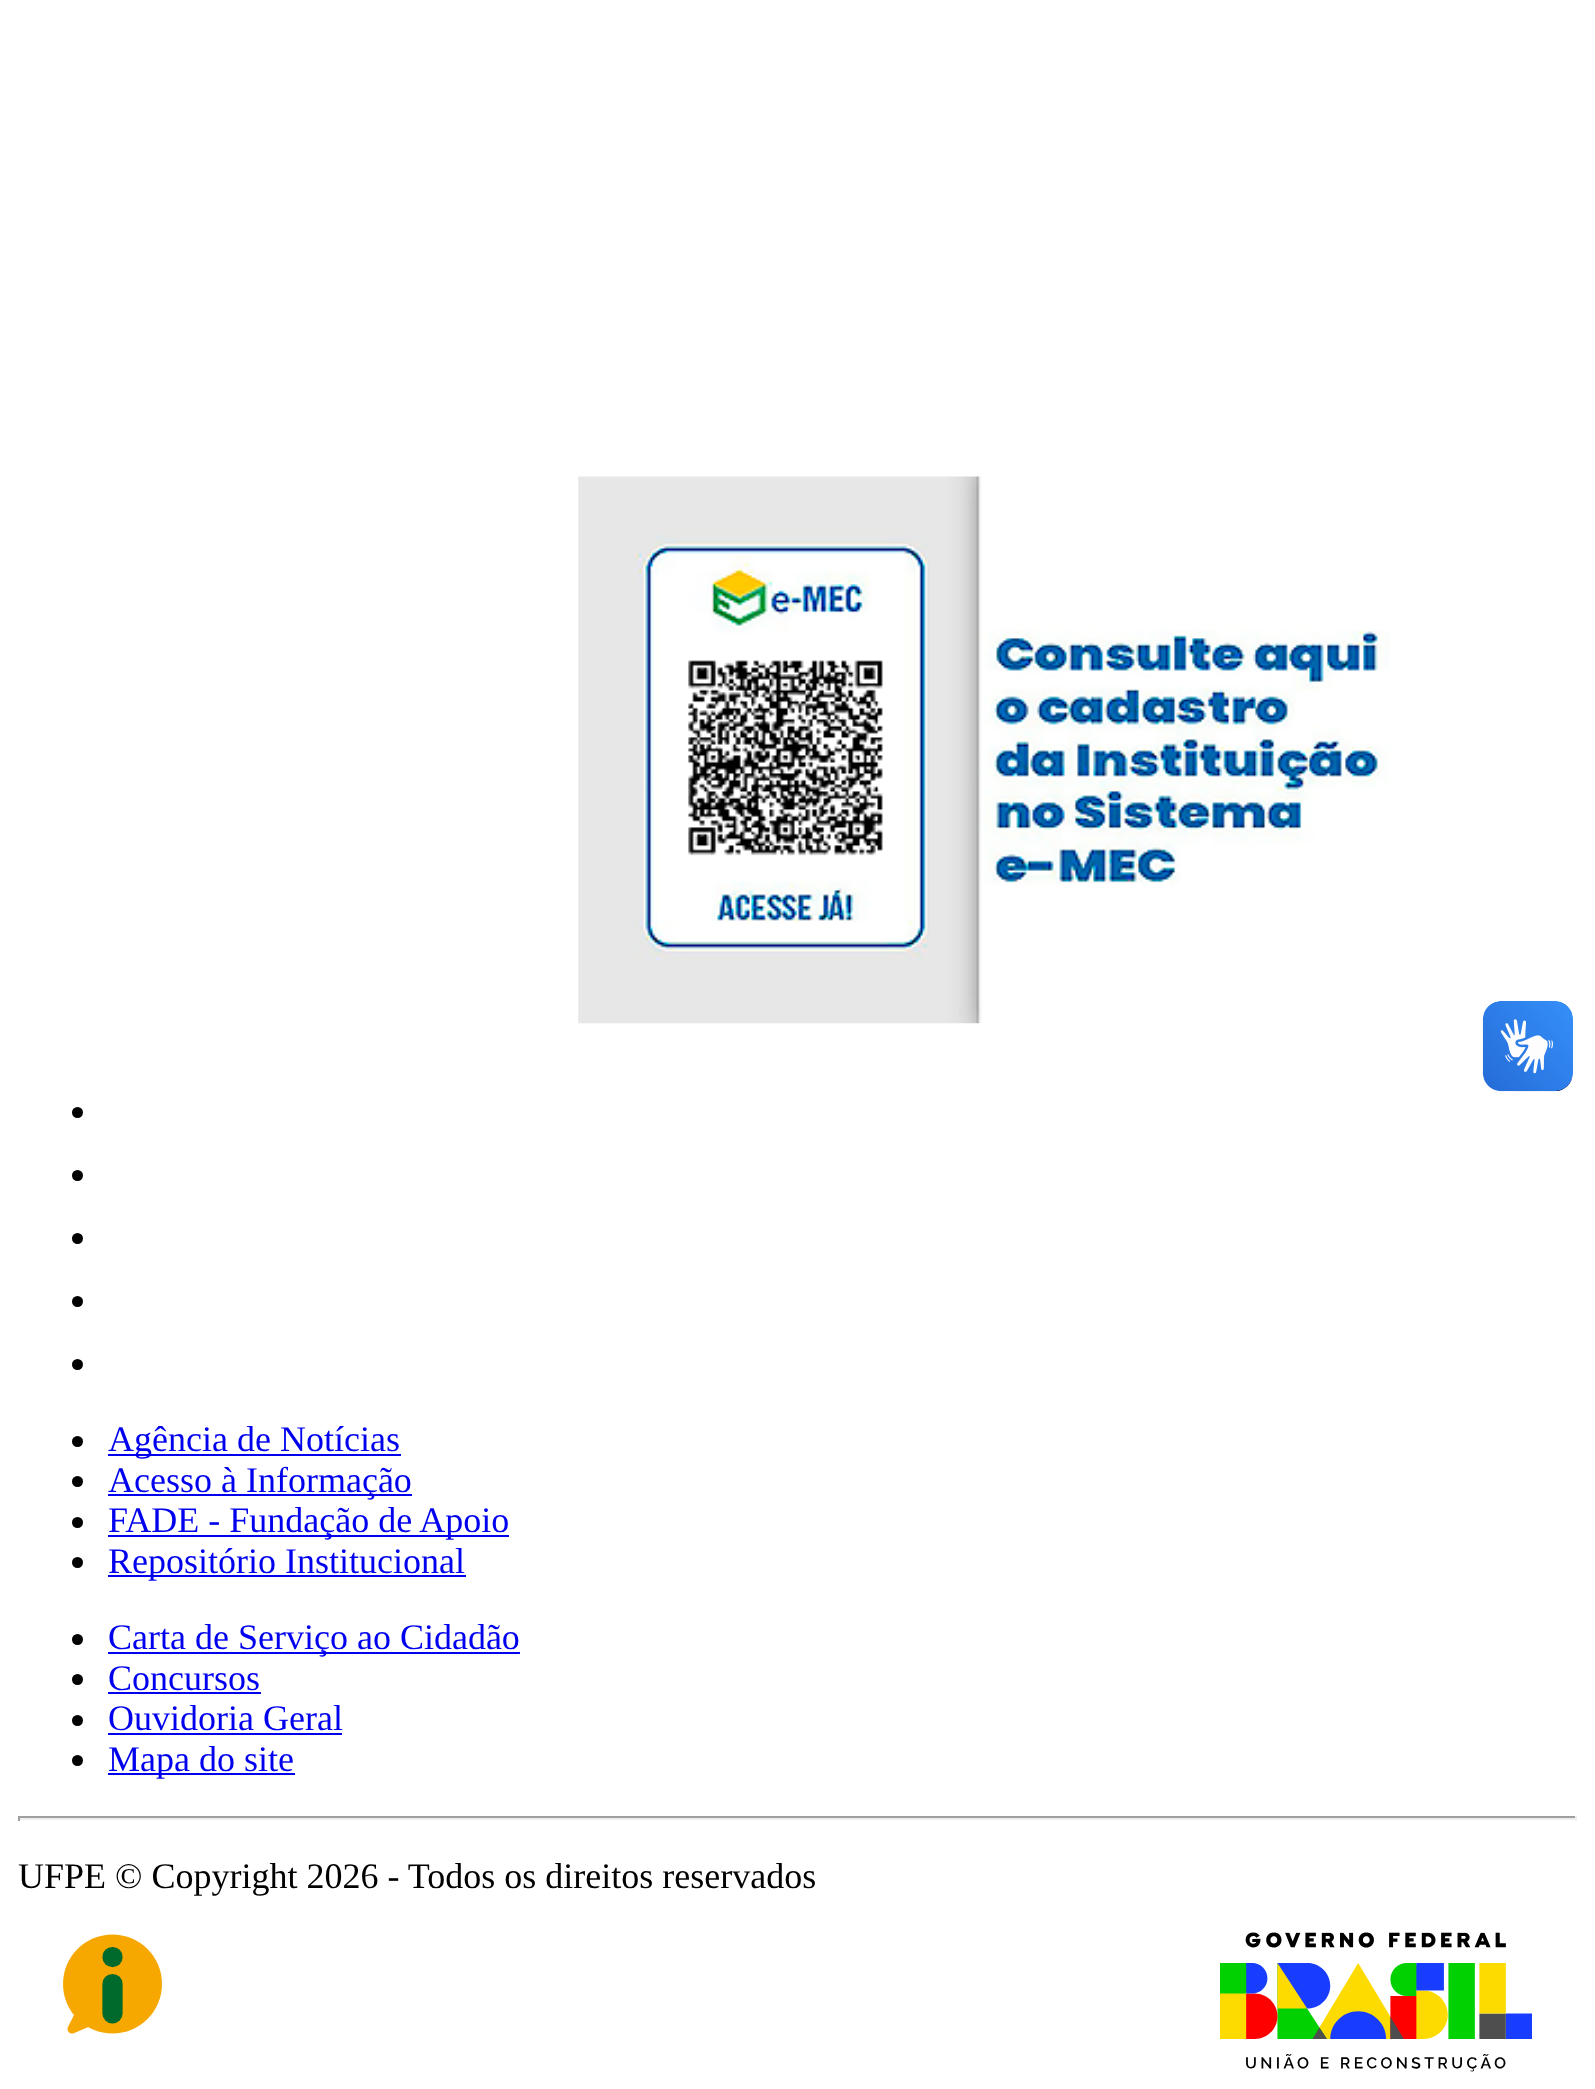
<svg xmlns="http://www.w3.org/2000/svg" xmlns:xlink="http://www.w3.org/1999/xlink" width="1595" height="2089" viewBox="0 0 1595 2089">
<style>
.cls-1{font:36px Liberation Serif;fill:#0000ee}
.cls-2{font:36px Liberation Serif;fill:#000000}
</style>
<rect width="100%" height="100%" fill="#ffffff"/>
<image xlink:href="image0.png" x="1482" y="1001" width="91" height="91"/>
<image xlink:href="image1.png" x="1483" y="1001" width="90" height="90"/>
<image xlink:href="image2.png" x="578" y="476" width="812" height="548"/>
<circle fill="#000000" cx="77.5" cy="1112.5" r="5.5"/>
<circle fill="#000000" cx="77.5" cy="1175.5" r="5.5"/>
<circle fill="#000000" cx="77.5" cy="1238.5" r="5.5"/>
<circle fill="#000000" cx="77.5" cy="1301.5" r="5.5"/>
<circle fill="#000000" cx="77.5" cy="1364.5" r="5.5"/>
<circle fill="#000000" cx="77.5" cy="1441.5" r="5.5"/>
<rect fill="#0000ee" x="108" y="1454" width="293" height="2"/>
<circle fill="#000000" cx="77.5" cy="1481.5" r="5.5"/>
<rect fill="#0000ee" x="108" y="1494" width="304" height="2"/>
<circle fill="#000000" cx="77.5" cy="1522.5" r="5.5"/>
<rect fill="#0000ee" x="108" y="1535" width="401" height="2"/>
<circle fill="#000000" cx="77.5" cy="1562.5" r="5.5"/>
<rect fill="#0000ee" x="108" y="1575" width="358" height="2"/>
<circle fill="#000000" cx="77.5" cy="1639.5" r="5.5"/>
<rect fill="#0000ee" x="108" y="1652" width="412" height="2"/>
<circle fill="#000000" cx="77.5" cy="1679.5" r="5.5"/>
<rect fill="#0000ee" x="108" y="1692" width="153" height="2"/>
<circle fill="#000000" cx="77.5" cy="1720.5" r="5.5"/>
<rect fill="#0000ee" x="108" y="1733" width="234" height="2"/>
<circle fill="#000000" cx="77.5" cy="1760.5" r="5.5"/>
<rect fill="#0000ee" x="108" y="1773" width="187" height="2"/>
<rect fill="#9f9f9f" x="18" y="1816" width="1559" height="2"/>
<rect fill="#eeeeee" x="1575" y="1816" width="2" height="5"/>
<rect fill="#eeeeee" x="18" y="1818" width="1559" height="2"/>
<rect fill="#9f9f9f" x="18" y="1816" width="2" height="5"/>
<image xlink:href="image3.png" x="63" y="1934" width="99" height="100"/>
<image xlink:href="image4.png" x="1220" y="1932" width="312" height="140"/>
<text class="cls-1"><tspan x="108" y="1451">Agência de Notícias</tspan><tspan x="108" y="1492">Acesso à Informação</tspan><tspan x="108" y="1532">FADE - Fundação de Apoio</tspan><tspan x="108" y="1573">Repositório Institucional</tspan></text>
<text class="cls-1"><tspan x="108" y="1649">Carta de Serviço ao Cidadão</tspan><tspan x="108" y="1690">Concursos</tspan><tspan x="108" y="1730">Ouvidoria Geral</tspan><tspan x="108" y="1771">Mapa do site</tspan></text>
<text class="cls-2" x="18" y="1888">UFPE © Copyright 2026 - Todos os direitos reservados</text>
</svg>
